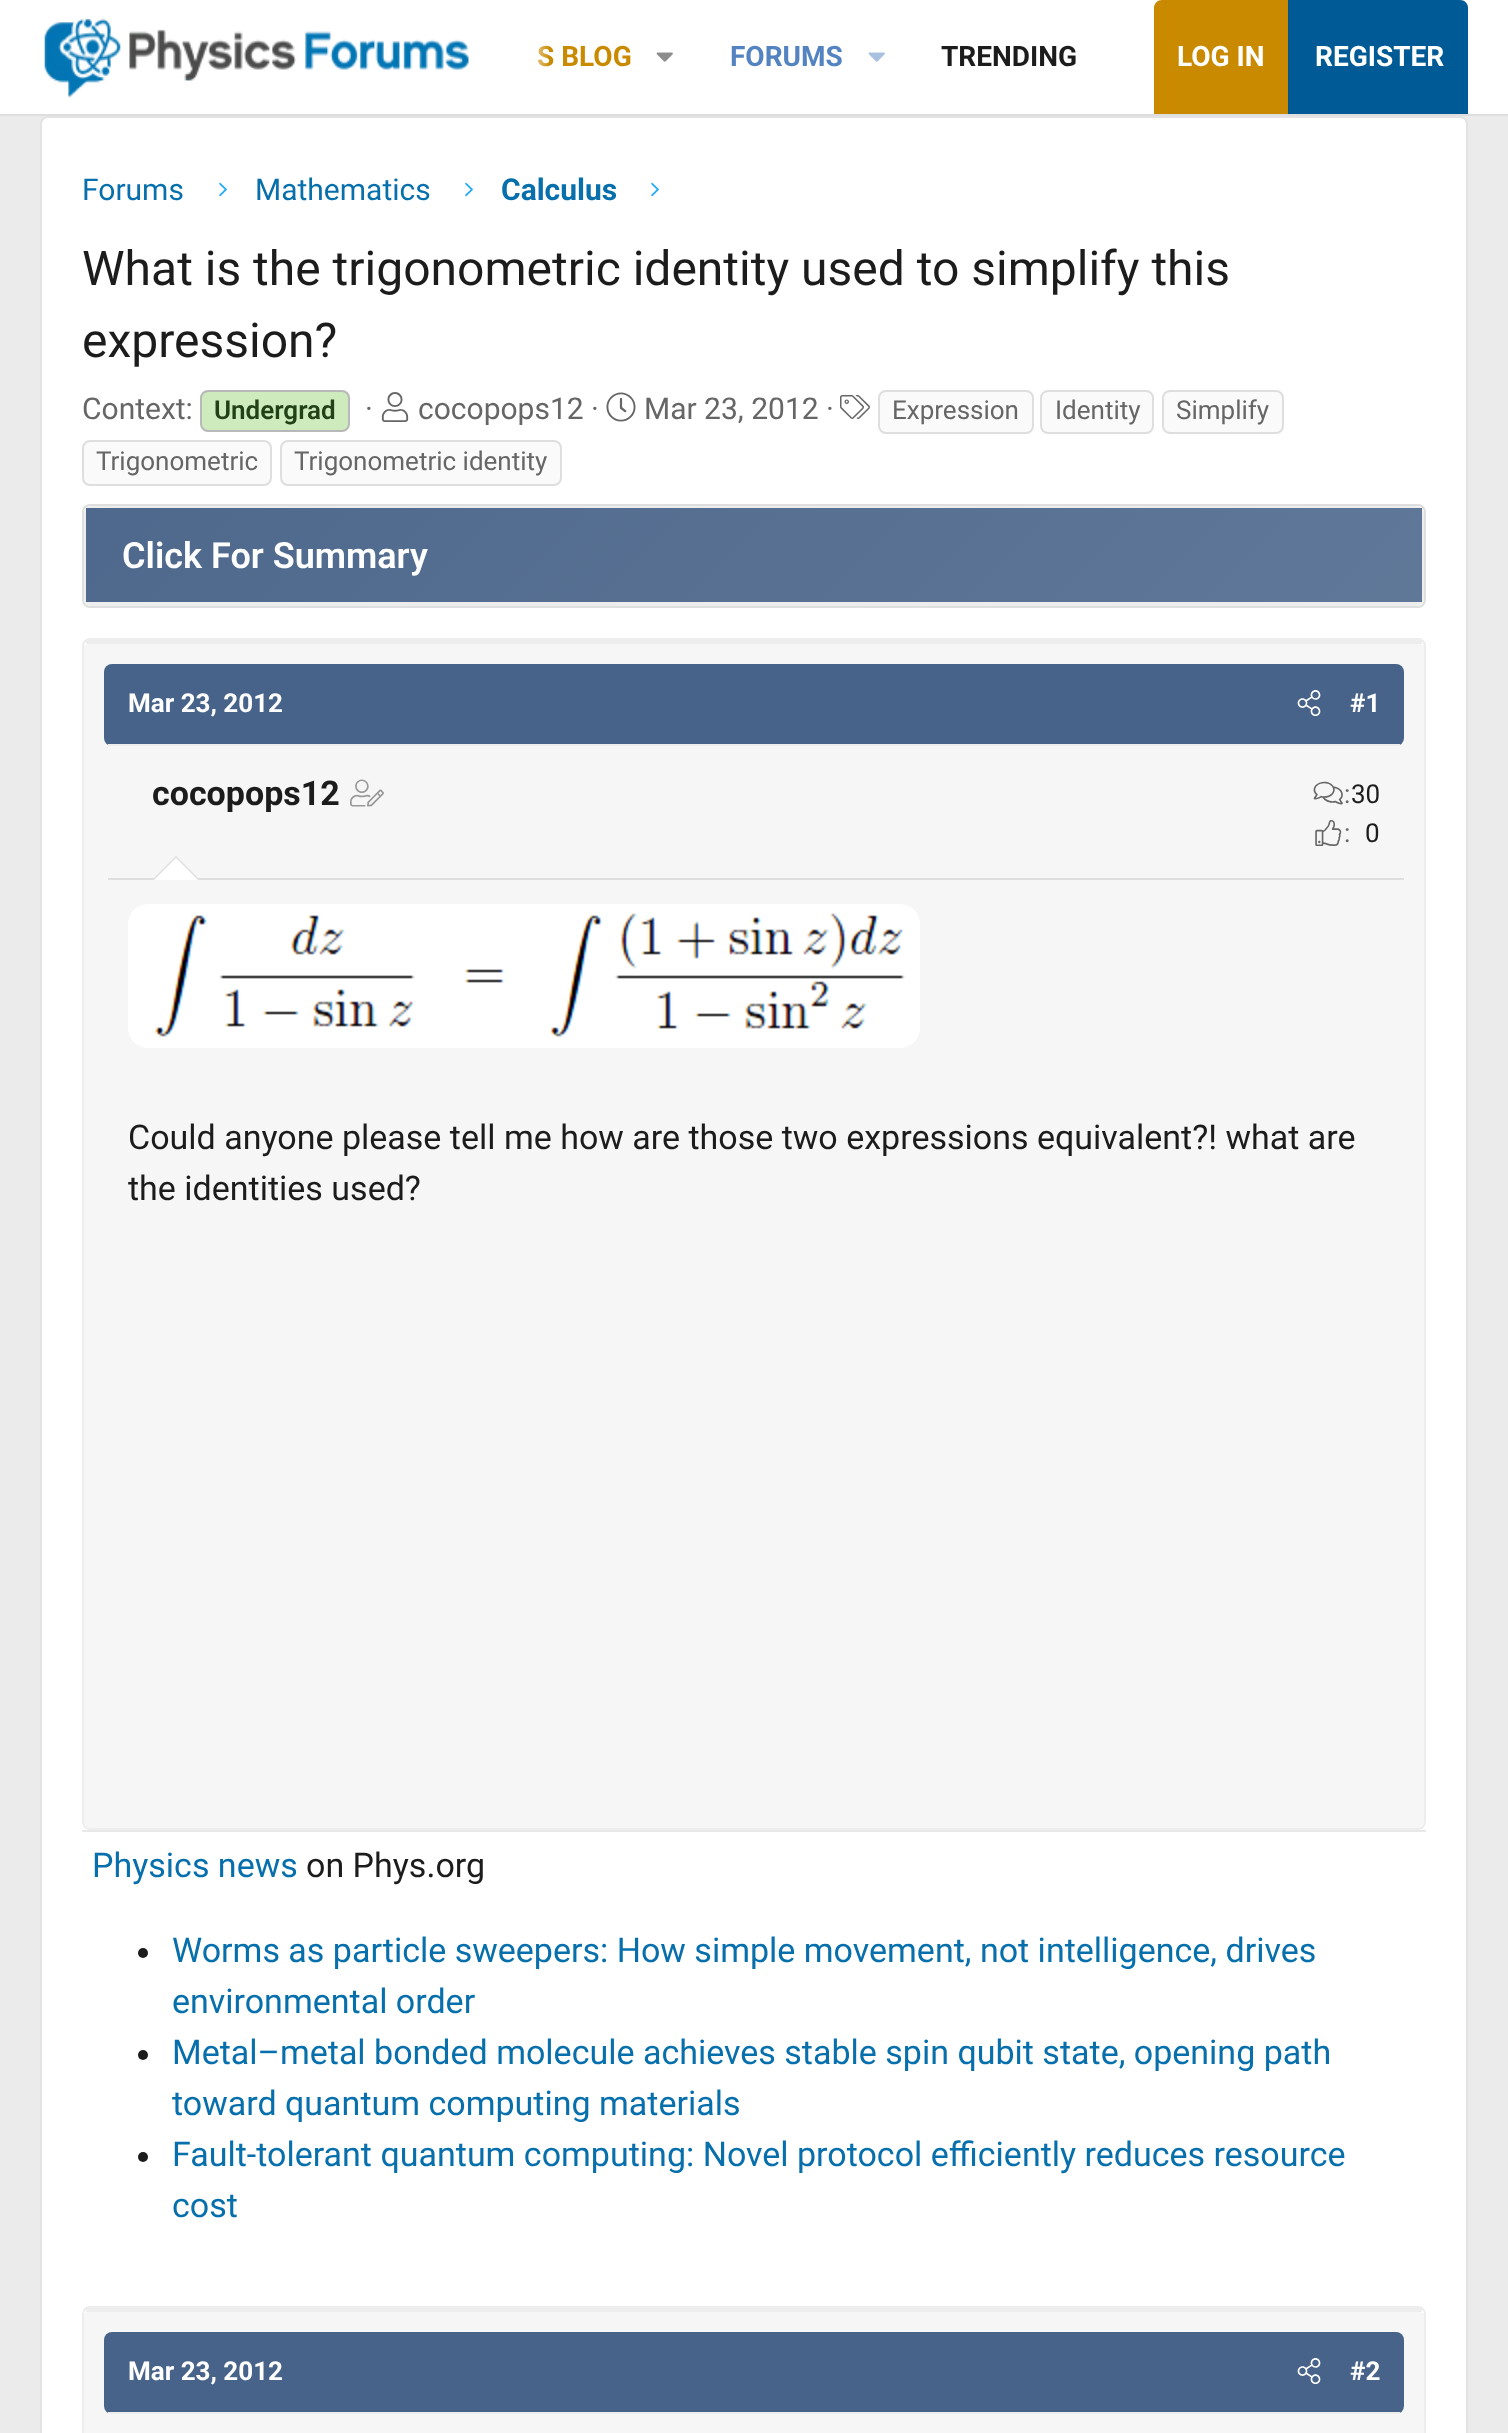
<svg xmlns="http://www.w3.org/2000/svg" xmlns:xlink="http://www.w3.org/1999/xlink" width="1508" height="2433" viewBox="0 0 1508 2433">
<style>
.cls-1{font:bold 28px Roboto;fill:#c98a00}
.cls-2{font:bold 28px Roboto;fill:#5384c1}
.cls-3{font:bold 28px Roboto;fill:#1c1c1c}
.cls-4{font:bold 28px Roboto;fill:#ffffff}
.cls-5{font:30px Roboto;fill:#066fac}
.cls-6{font:bold 30px Roboto;fill:#066fac}
.cls-7{font:48px Roboto;fill:#1c1c1c}
.cls-8{font:30px Roboto;fill:#666666}
.cls-9{font:600 26px Roboto;fill:#234117}
.cls-10{font:26px Roboto;fill:#666666}
.cls-11{font:600 36px Roboto;fill:#ffffff}
.cls-12{font:bold 26px Roboto;fill:#ffffff}
.cls-13{font:bold 34px Roboto;fill:#1c1c1c}
.cls-14{font:26px Roboto;fill:#1c1c1c}
.cls-15{font:34px Roboto;fill:#1c1c1c}
.cls-16{font:34px Roboto;fill:#066fac}
</style>
<defs>
<linearGradient id="g1" gradientUnits="userSpaceOnUse" x1="397" y1="198" x2="1112" y2="913"><stop offset="0" stop-color="#456187" stop-opacity="0.95"/><stop offset="1" stop-color="#456187" stop-opacity="0.85"/></linearGradient>
<linearGradient id="g2" gradientUnits="userSpaceOnUse" x1="470" y1="57" x2="550" y2="57"><stop offset="0.66" stop-color="#ffffff"/><stop offset="1" stop-color="#ffffff" stop-opacity="0"/></linearGradient>
</defs>
<rect width="100%" height="100%" fill="#ebebeb"/>
<rect fill="#ffffff" x="0" y="0" width="1508" height="114"/>
<rect fill="#dedede" x="0" y="114" width="1508" height="2"/>
<image xlink:href="image0.png" x="44" y="18" width="425" height="80"/>
<image xlink:href="image1.png" x="656" y="52" width="17" height="10"/>
<image xlink:href="image2.png" x="868" y="52" width="17" height="10"/>
<path fill="#c98a00" d="M1162 0H1288V114H1154V8C1154 3.5 1157.5 0 1162 0Z"/>
<path fill="#005a96" d="M1288 0H1460C1464.5 0 1468 3.5 1468 8V114H1288Z"/>
<rect fill="#015790" x="1288" y="0" width="2" height="114"/>
<rect fill="#ffffff" stroke="#e4e2e2" stroke-width="2" x="41" y="117" width="1426" height="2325" rx="7"/>
<image xlink:href="image3.png" x="219" y="182" width="8" height="15"/>
<image xlink:href="image3.png" x="465" y="182" width="8" height="15"/>
<image xlink:href="image3.png" x="651" y="182" width="8" height="15"/>
<rect fill="#cdebbd" stroke="#b8b8b8" stroke-width="2" x="201" y="391" width="148" height="40" rx="7"/>
<image xlink:href="image4.png" x="381" y="392" width="28" height="30"/>
<image xlink:href="image5.png" x="606" y="392" width="30" height="30"/>
<image xlink:href="image6.png" x="840" y="395" width="30" height="24"/>
<rect fill="#fafafa" stroke="#dedede" stroke-width="2" x="879" y="391" width="154" height="42" rx="7"/>
<rect fill="#fafafa" stroke="#dedede" stroke-width="2" x="1041" y="391" width="112" height="42" rx="7"/>
<rect fill="#fafafa" stroke="#dedede" stroke-width="2" x="1163" y="391" width="120" height="42" rx="7"/>
<rect fill="#fafafa" stroke="#dedede" stroke-width="2" x="83" y="441" width="188" height="44" rx="7"/>
<rect fill="#fafafa" stroke="#dedede" stroke-width="2" x="281" y="441" width="280" height="44" rx="7"/>
<rect fill="none" stroke="#dedede" stroke-width="2" x="83" y="505" width="1342" height="102" rx="7"/>
<rect fill="#fafafa" stroke="#ededed" stroke-width="2" x="85" y="507" width="1338" height="98" rx="7"/>
<rect fill="url(#g1)" x="86" y="508" width="1336" height="94"/>
<rect fill="#ededed" x="86" y="602" width="1336" height="2"/>
<path fill="#f6f6f6" d="M90 644H1418C1421 644 1424 645 1424 646V1822C1424 1825 1421 1828 1418 1828H90C87 1828 84 1825 84 1822V646C84 645 87 644 90 644Z"/>
<rect fill="none" stroke="#ededed" stroke-width="2" x="83" y="639" width="1342" height="1190" rx="7"/>
<rect fill="#ededed" x="86" y="640" width="1336" height="4"/>
<rect fill="#47638a" x="104" y="664" width="1300" height="82" rx="8"/>
<rect fill="#ededed" x="108" y="744" width="1292" height="2"/>
<image xlink:href="image7.png" x="1297" y="690" width="24" height="26"/>
<rect fill="#dedede" x="108" y="878" width="1296" height="2"/>
<image xlink:href="image8.png" x="350" y="779" width="34" height="28"/>
<image xlink:href="image9.png" x="1313" y="781" width="30" height="24"/>
<image xlink:href="image10.png" x="1315" y="820" width="27" height="26"/>
<path fill="#dedede" d="M200 880H152L176 856Z"/>
<path fill="#ffffff" d="M198 880H154L176 858Z"/>
<image xlink:href="image11.png" x="128" y="904" width="792" height="144"/>
<rect fill="#e8e8e8" x="82" y="1830" width="1344" height="2"/>
<circle fill="#1c1c1c" cx="143" cy="1953" r="5"/>
<circle fill="#1c1c1c" cx="143" cy="2055" r="5"/>
<circle fill="#1c1c1c" cx="143" cy="2157" r="5"/>
<path fill="#f6f6f6" d="M90 2312H1418C1421 2312 1424 2313 1424 2314V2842C1424 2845 1421 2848 1418 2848H90C87 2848 84 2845 84 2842V2314C84 2313 87 2312 90 2312Z"/>
<rect fill="none" stroke="#ededed" stroke-width="2" x="83" y="2307" width="1342" height="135" rx="7"/>
<rect fill="#ededed" x="86" y="2308" width="1336" height="4"/>
<rect fill="#47638a" x="104" y="2332" width="1300" height="82" rx="8"/>
<rect fill="#ededed" x="108" y="2412" width="1292" height="2"/>
<image xlink:href="image7.png" x="1297" y="2358" width="24" height="26"/>
<text class="cls-1" x="537" y="66">S BLOG</text>
<text class="cls-2" x="730" y="66">FORUMS</text>
<text class="cls-3" x="941" y="66">TRENDING</text>
<rect fill="url(#g2)" x="538" y="45" width="11" height="22"/>
<text class="cls-4" x="1177" y="66">LOG IN</text>
<text class="cls-4" x="1315" y="66">REGISTER</text>
<text class="cls-5" x="82" y="200">Forums</text>
<text class="cls-5" x="255" y="200">Mathematics</text>
<text class="cls-6" x="501" y="200">Calculus</text>
<text class="cls-7"><tspan x="82" y="285">What is the trigonometric identity used to simplify this</tspan><tspan x="82" y="357">expression?</tspan></text>
<text class="cls-8" x="82" y="419">Context:</text>
<text class="cls-9" x="214" y="419">Undergrad</text>
<text class="cls-8" x="365" y="419">·</text>
<text class="cls-8" x="418" y="419">cocopops12 ·</text>
<text class="cls-8" x="644" y="419">Mar 23, 2012 ·</text>
<text class="cls-10" x="892" y="419">Expression</text>
<text class="cls-10" x="1055" y="419">Identity</text>
<text class="cls-10" x="1176" y="419">Simplify</text>
<text class="cls-10" x="96" y="470">Trigonometric</text>
<text class="cls-10" x="294" y="470">Trigonometric identity</text>
<text class="cls-11" x="122" y="568">Click For Summary</text>
<text class="cls-12" x="128" y="712">Mar 23, 2012</text>
<text class="cls-12" x="1350" y="712">#1</text>
<text class="cls-13" x="152" y="805">cocopops12</text>
<text class="cls-10" x="1344" y="803">:</text>
<text class="cls-14" x="1351" y="803">30</text>
<text class="cls-10" x="1344" y="842">:</text>
<text class="cls-14" x="1365" y="842">0</text>
<text class="cls-15"><tspan x="128" y="1149">Could anyone please tell me how are those two expressions equivalent?! what are</tspan><tspan x="128" y="1200">the identities used?</tspan></text>
<text class="cls-16" x="92" y="1877">Physics news</text>
<text class="cls-15" x="306" y="1877">on Phys.org</text>
<text class="cls-16"><tspan x="172" y="1962">Worms as particle sweepers: How simple movement, not intelligence, drives</tspan><tspan x="172" y="2013">environmental order</tspan><tspan x="172" y="2064">Metal–metal bonded molecule achieves stable spin qubit state, opening path</tspan><tspan x="172" y="2115">toward quantum computing materials</tspan><tspan x="172" y="2166">Fault-tolerant quantum computing: Novel protocol efficiently reduces resource</tspan><tspan x="172" y="2217">cost</tspan></text>
<text class="cls-12" x="128" y="2380">Mar 23, 2012</text>
<text class="cls-12" x="1350" y="2380">#2</text>
</svg>
